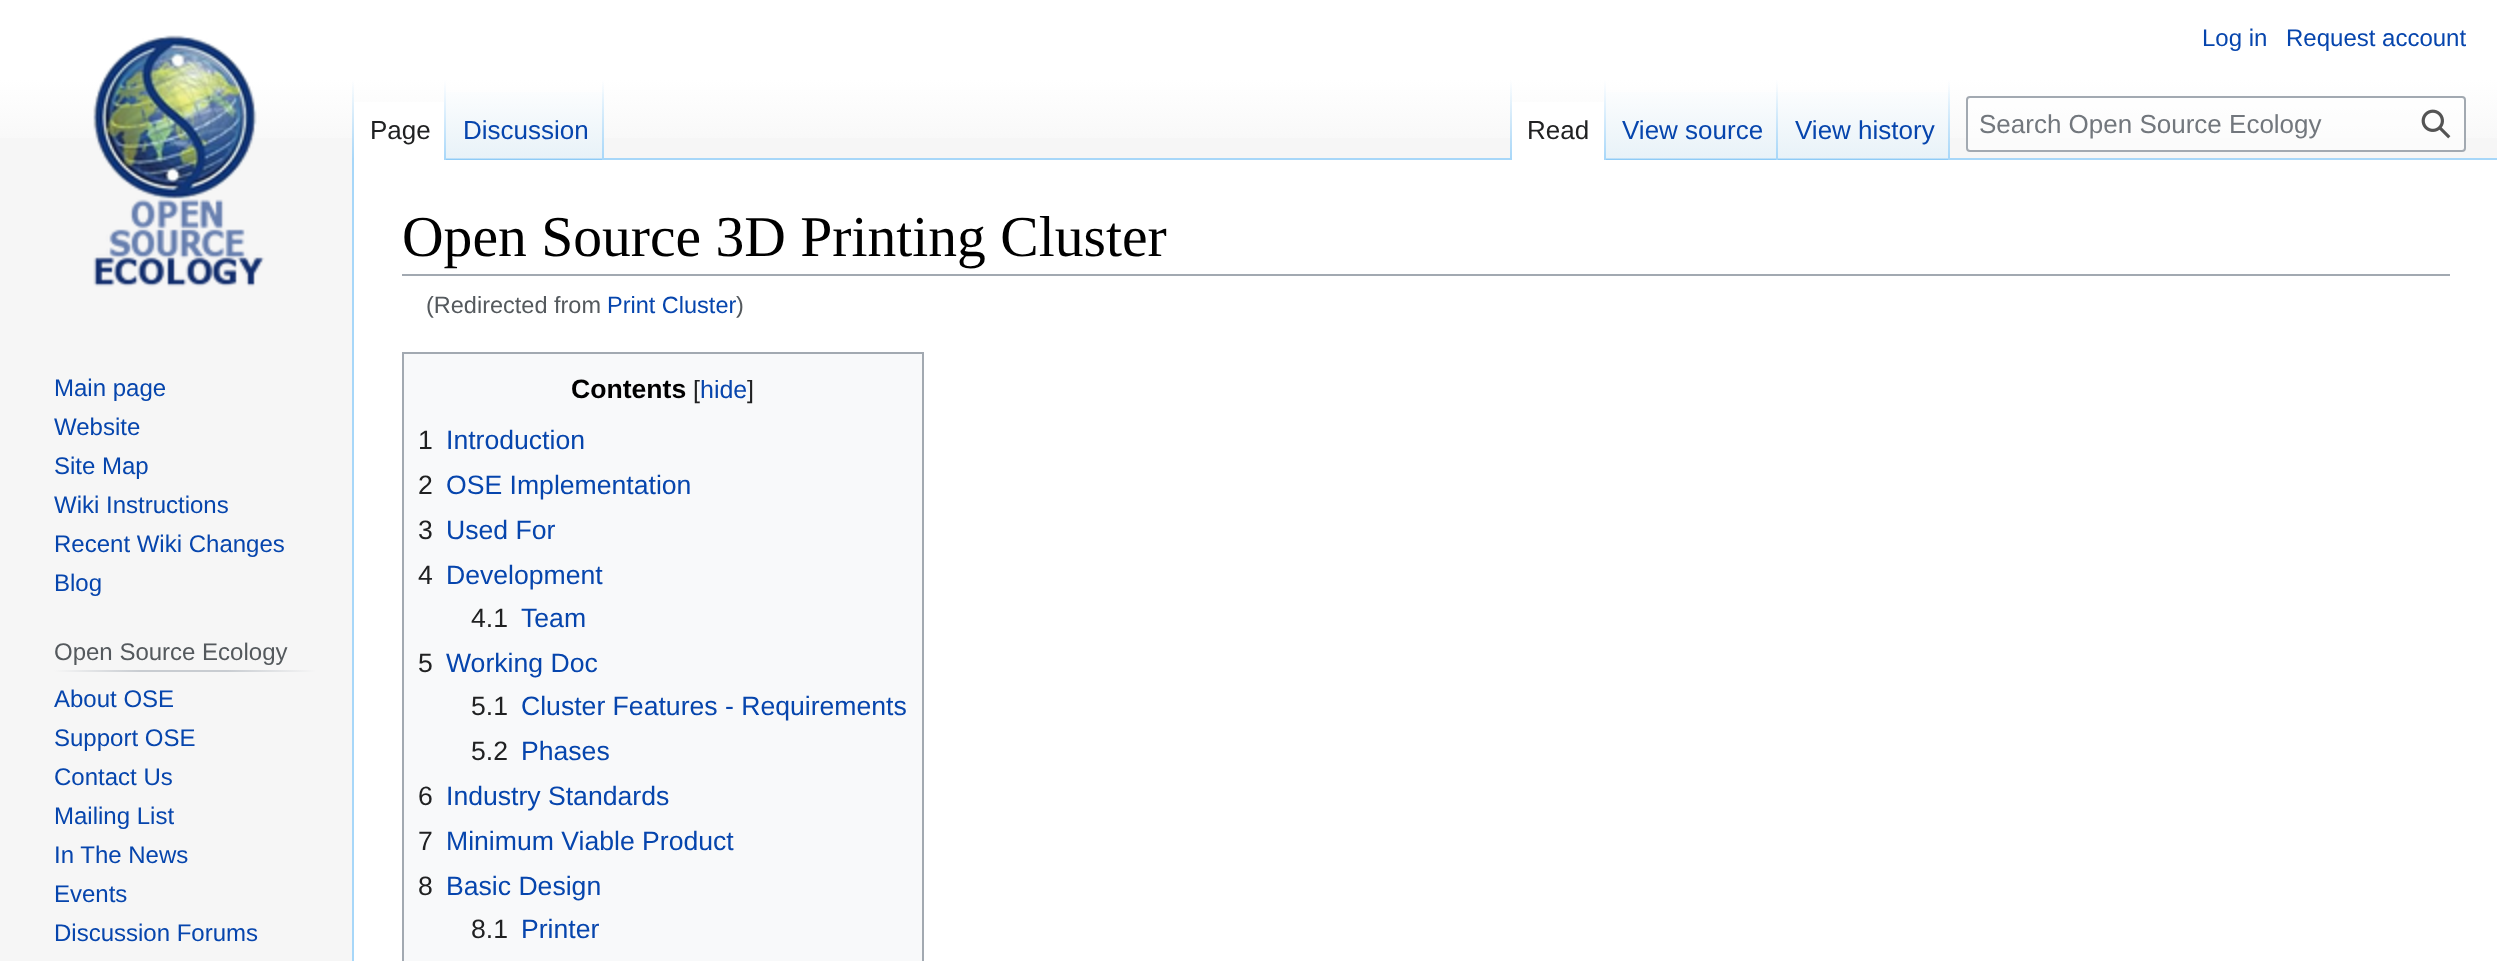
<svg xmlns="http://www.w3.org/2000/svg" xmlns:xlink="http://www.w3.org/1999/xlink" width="2497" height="961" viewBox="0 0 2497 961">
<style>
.cls-1{font:24px Liberation Sans;fill:#0645ad}
.cls-2{font:26px Liberation Sans;fill:#202122}
.cls-3{font:26px Liberation Sans;fill:#0645ad}
.cls-4{font:26px Liberation Sans;fill:#72777d}
.cls-5{font:24px Liberation Sans;fill:#54595d}
.cls-6{font:57.6px Liberation Serif;fill:#000000}
.cls-7{font:23.5px Liberation Sans;fill:#54595d}
.cls-8{font:23.5px Liberation Sans;fill:#0645ad}
.cls-9{font:bold 26.6px Liberation Sans;fill:#000000}
.cls-10{font:25px Liberation Sans;fill:#202122}
.cls-11{font:25px Liberation Sans;fill:#0645ad}
.cls-12{font:26.6px Liberation Sans;fill:#202122}
.cls-13{font:26.6px Liberation Sans;fill:#0645ad}
</style>
<defs>
<linearGradient id="g1" gradientUnits="userSpaceOnUse" x1="1249" y1="0" x2="1249" y2="160"><stop offset="0.5" stop-color="#ffffff"/><stop offset="1" stop-color="#f6f6f6"/></linearGradient>
<linearGradient id="g2" gradientUnits="userSpaceOnUse" x1="353" y1="80" x2="353" y2="160"><stop offset="0" stop-color="#a7d7f9" stop-opacity="0"/><stop offset="1" stop-color="#a7d7f9"/></linearGradient>
<linearGradient id="g3" gradientUnits="userSpaceOnUse" x1="445" y1="80" x2="445" y2="160"><stop offset="0" stop-color="#ffffff"/><stop offset="1" stop-color="#a7d7f9"/></linearGradient>
<linearGradient id="g4" gradientUnits="userSpaceOnUse" x1="525" y1="160" x2="525" y2="80"><stop offset="0" stop-color="#77c1f6"/><stop offset="0.03" stop-color="#e8f2f8"/><stop offset="1" stop-color="#ffffff"/></linearGradient>
<linearGradient id="g5" gradientUnits="userSpaceOnUse" x1="603" y1="80" x2="603" y2="160"><stop offset="0" stop-color="#a7d7f9" stop-opacity="0"/><stop offset="1" stop-color="#a7d7f9"/></linearGradient>
<linearGradient id="g6" gradientUnits="userSpaceOnUse" x1="1511" y1="80" x2="1511" y2="160"><stop offset="0" stop-color="#a7d7f9" stop-opacity="0"/><stop offset="1" stop-color="#a7d7f9"/></linearGradient>
<linearGradient id="g7" gradientUnits="userSpaceOnUse" x1="1605" y1="80" x2="1605" y2="160"><stop offset="0" stop-color="#ffffff"/><stop offset="1" stop-color="#a7d7f9"/></linearGradient>
<linearGradient id="g8" gradientUnits="userSpaceOnUse" x1="1692" y1="160" x2="1692" y2="80"><stop offset="0" stop-color="#77c1f6"/><stop offset="0.03" stop-color="#e8f2f8"/><stop offset="1" stop-color="#ffffff"/></linearGradient>
<linearGradient id="g9" gradientUnits="userSpaceOnUse" x1="1777" y1="80" x2="1777" y2="160"><stop offset="0" stop-color="#a7d7f9" stop-opacity="0"/><stop offset="1" stop-color="#a7d7f9"/></linearGradient>
<linearGradient id="g10" gradientUnits="userSpaceOnUse" x1="1864" y1="160" x2="1864" y2="80"><stop offset="0" stop-color="#77c1f6"/><stop offset="0.03" stop-color="#e8f2f8"/><stop offset="1" stop-color="#ffffff"/></linearGradient>
<linearGradient id="g11" gradientUnits="userSpaceOnUse" x1="1949" y1="80" x2="1949" y2="160"><stop offset="0" stop-color="#a7d7f9" stop-opacity="0"/><stop offset="1" stop-color="#a7d7f9"/></linearGradient>
<linearGradient id="g12" gradientUnits="userSpaceOnUse" x1="54" y1="671" x2="316" y2="671"><stop offset="0" stop-color="#f6f6f6"/><stop offset="0.33" stop-color="#c8ccd1"/><stop offset="0.66" stop-color="#c8ccd1"/><stop offset="1" stop-color="#f6f6f6"/></linearGradient>
</defs>
<rect width="100%" height="100%" fill="#f6f6f6"/>
<rect fill="url(#g1)" x="0" y="0" width="2497" height="138"/>
<rect fill="#a7d7f9" x="352" y="158" width="2" height="803"/>
<rect fill="url(#g2)" x="352" y="80" width="2" height="80"/>
<rect fill="#ffffff" x="354" y="102" width="90" height="58"/>
<rect fill="url(#g3)" x="444" y="80" width="2" height="80"/>
<rect fill="url(#g4)" x="446" y="92" width="158" height="68"/>
<rect fill="url(#g5)" x="602" y="80" width="2" height="80"/>
<rect fill="#a7d7f9" x="604" y="158" width="1893" height="2"/>
<rect fill="url(#g6)" x="1510" y="80" width="2" height="80"/>
<rect fill="#ffffff" x="1512" y="102" width="92" height="58"/>
<rect fill="url(#g7)" x="1604" y="80" width="2" height="80"/>
<rect fill="url(#g8)" x="1606" y="92" width="172" height="68"/>
<rect fill="url(#g9)" x="1776" y="80" width="2" height="80"/>
<rect fill="url(#g10)" x="1778" y="92" width="172" height="68"/>
<rect fill="url(#g11)" x="1948" y="80" width="2" height="80"/>
<rect fill="#ffffff" fill-opacity="0.5" stroke="#a2a9b1" stroke-width="2" x="1967" y="97" width="498" height="54" rx="3"/>
<image xlink:href="image0.png" x="2421" y="109" width="30" height="30"/>
<image xlink:href="image1.png" x="93" y="35" width="172" height="252"/>
<rect fill="url(#g12)" x="54" y="670" width="262" height="2"/>
<rect fill="#ffffff" x="354" y="160" width="2143" height="801"/>
<rect fill="#a2a9b1" x="402" y="274" width="2048" height="2"/>
<rect fill="#f8f9fa" stroke="#a2a9b1" stroke-width="2" x="403" y="353" width="520" height="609"/>
<text class="cls-1" x="2202" y="46">Log in</text>
<text class="cls-1" x="2286" y="46">Request account</text>
<text class="cls-2" x="370" y="139">Page</text>
<text class="cls-3" x="463" y="139">Discussion</text>
<text class="cls-2" x="1527" y="139">Read</text>
<text class="cls-3" x="1622" y="139">View source</text>
<text class="cls-3" x="1795" y="139">View history</text>
<text class="cls-4" x="1979" y="133">Search Open Source Ecology</text>
<text class="cls-1"><tspan x="54" y="396">Main page</tspan><tspan x="54" y="435">Website</tspan><tspan x="54" y="474">Site Map</tspan><tspan x="54" y="513">Wiki Instructions</tspan><tspan x="54" y="552">Recent Wiki Changes</tspan><tspan x="54" y="591">Blog</tspan></text>
<text class="cls-5" x="54" y="660">Open Source Ecology</text>
<text class="cls-1"><tspan x="54" y="707">About OSE</tspan><tspan x="54" y="746">Support OSE</tspan><tspan x="54" y="785">Contact Us</tspan><tspan x="54" y="824">Mailing List</tspan><tspan x="54" y="863">In The News</tspan><tspan x="54" y="902">Events</tspan><tspan x="54" y="941">Discussion Forums</tspan></text>
<text class="cls-6" x="402" y="256">Open Source 3D Printing Cluster</text>
<text class="cls-7" x="426" y="313">(Redirected from</text>
<text class="cls-8" x="607" y="313">Print Cluster</text>
<text class="cls-7" x="736" y="313">)</text>
<text class="cls-9" x="571" y="398">Contents</text>
<text class="cls-10" x="693" y="398">[</text>
<text class="cls-11" x="700" y="398">hide</text>
<text class="cls-10" x="747" y="398">]</text>
<text class="cls-12" x="418" y="449">1</text>
<text class="cls-13" x="446" y="449">Introduction</text>
<text class="cls-12" x="418" y="494">2</text>
<text class="cls-13" x="446" y="494">OSE Implementation</text>
<text class="cls-12" x="418" y="539">3</text>
<text class="cls-13" x="446" y="539">Used For</text>
<text class="cls-12" x="418" y="584">4</text>
<text class="cls-13" x="446" y="584">Development</text>
<text class="cls-12" x="471" y="627">4.1</text>
<text class="cls-13" x="521" y="627">Team</text>
<text class="cls-12" x="418" y="672">5</text>
<text class="cls-13" x="446" y="672">Working Doc</text>
<text class="cls-12" x="471" y="715">5.1</text>
<text class="cls-13" x="521" y="715">Cluster Features - Requirements</text>
<text class="cls-12" x="471" y="760">5.2</text>
<text class="cls-13" x="521" y="760">Phases</text>
<text class="cls-12" x="418" y="805">6</text>
<text class="cls-13" x="446" y="805">Industry Standards</text>
<text class="cls-12" x="418" y="850">7</text>
<text class="cls-13" x="446" y="850">Minimum Viable Product</text>
<text class="cls-12" x="418" y="895">8</text>
<text class="cls-13" x="446" y="895">Basic Design</text>
<text class="cls-12" x="471" y="938">8.1</text>
<text class="cls-13" x="521" y="938">Printer</text>
</svg>
